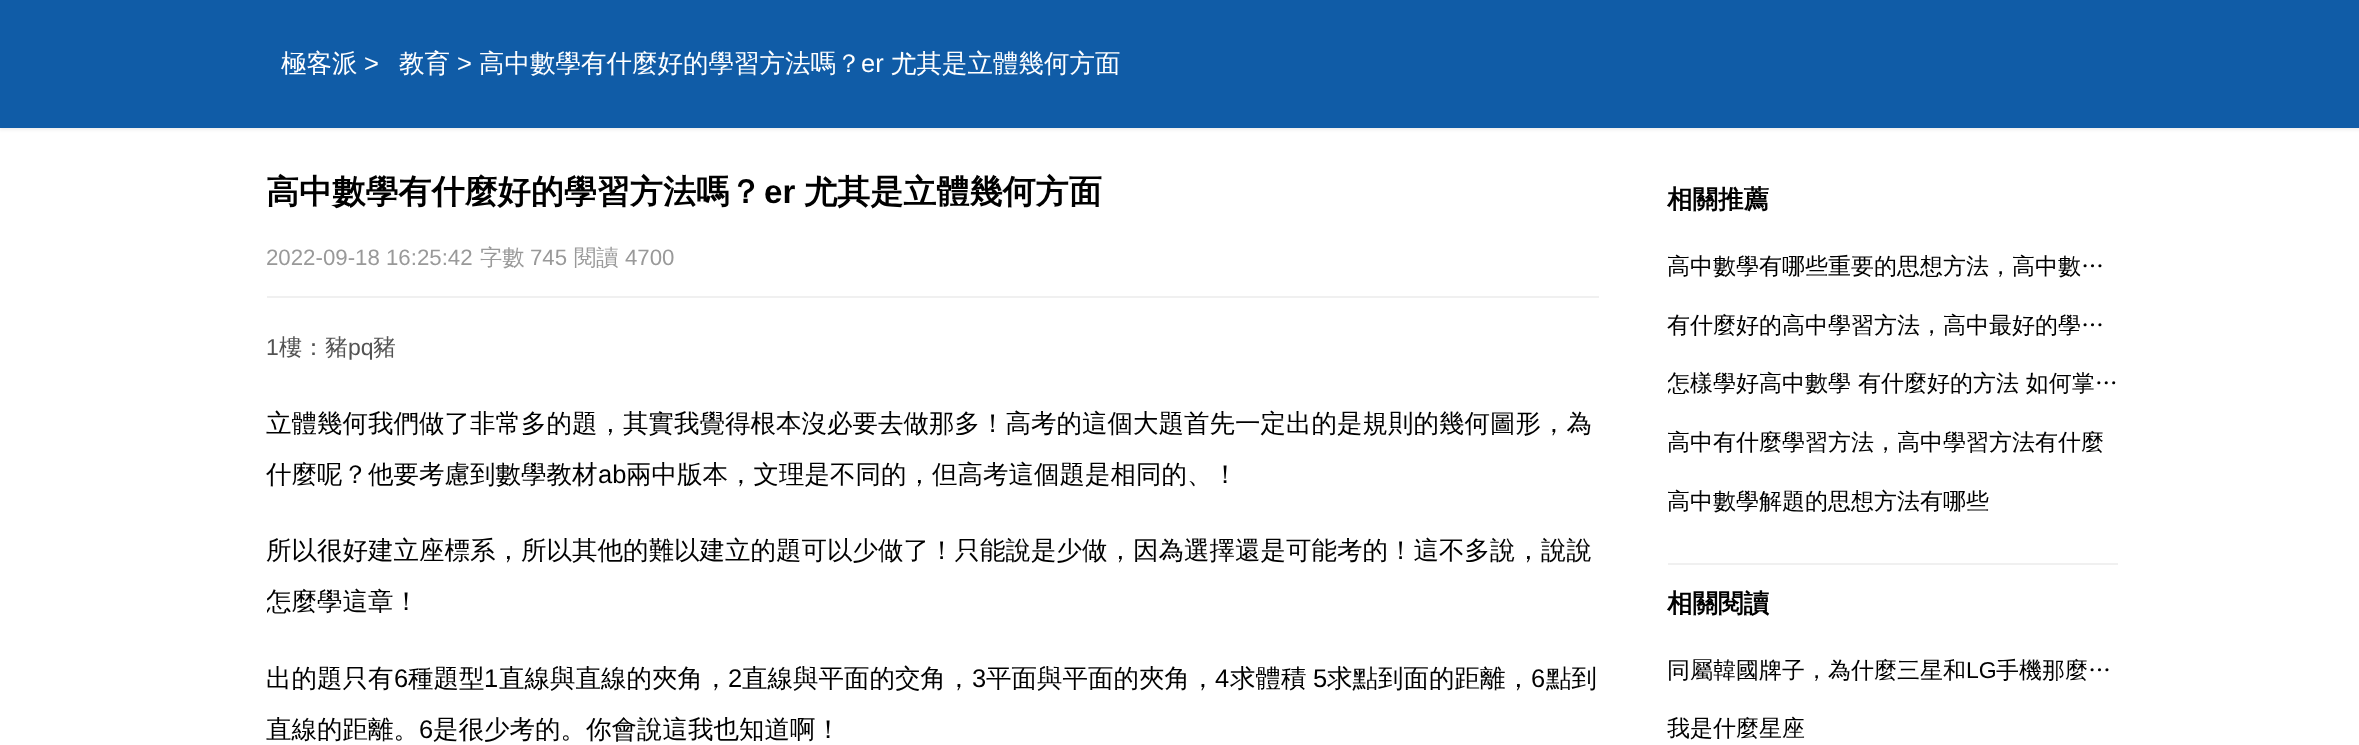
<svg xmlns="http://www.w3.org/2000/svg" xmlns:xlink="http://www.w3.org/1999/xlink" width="2359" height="745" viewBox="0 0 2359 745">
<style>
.cls-1{font:500 25.5px WenQuanYi Zen Hei;fill:#ffffff}
.cls-2{font:25.5px Liberation Sans;fill:#ffffff}
.cls-3{font:bold 33.1px WenQuanYi Zen Hei;fill:#000000}
.cls-4{font:bold 33.1px Liberation Sans;fill:#000000}
.cls-5{font:22.25px Liberation Sans;fill:#999999}
.cls-6{font:500 22.25px WenQuanYi Zen Hei;fill:#999999}
.cls-7{font:23px Liberation Sans;fill:#535353}
.cls-8{font:500 23px WenQuanYi Zen Hei;fill:#535353}
.cls-9{font:500 25.5px WenQuanYi Zen Hei;fill:#000000}
.cls-10{font:25.5px Liberation Sans;fill:#000000}
.cls-11{font:bold 25.5px WenQuanYi Zen Hei;fill:#000000}
.cls-12{font:500 23px WenQuanYi Zen Hei;fill:#000000}
.cls-13{font:23px Liberation Sans;fill:#000000}
</style>
<defs>
<clipPath id="clip1"><rect x="267" y="297" width="1332" height="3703"/></clipPath>
<clipPath id="clip2"><rect x="1668" y="359" width="450" height="51"/></clipPath>
</defs>
<rect width="100%" height="100%" fill="#ffffff"/>
<rect fill="#000000" fill-opacity="0.1" filter="blur(2px)" x="-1" y="-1" width="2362" height="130"/>
<rect fill="#105ca7" x="0" y="0" width="2359" height="128"/>
<rect fill="#f0f0f0" x="267" y="296" width="1332" height="2"/>
<rect fill="#f0f0f0" x="1668" y="563" width="450" height="2"/>
<text class="cls-1" x="281" y="72">極客派</text>
<text class="cls-2" x="364" y="72">&gt;</text>
<text class="cls-1" x="399" y="72">教育</text>
<text class="cls-2" x="457" y="72">&gt;</text>
<text class="cls-1" x="479" y="72">高中數學有什麼好的學習方法嗎？</text>
<text class="cls-2" x="861" y="72">er</text>
<text class="cls-1" x="891" y="72">尤其是立體幾何方面</text>
<text class="cls-3" x="266" y="203">高中數學有什麼好的學習方法嗎？</text>
<text class="cls-4" x="764" y="203">er</text>
<text class="cls-3" x="804" y="203">尤其是立體幾何方面</text>
<text class="cls-5" x="266" y="265">2022-09-18 16:25:42</text>
<text class="cls-6" x="480" y="265">字數</text>
<text class="cls-5" x="530" y="265">745</text>
<text class="cls-6" x="574" y="265">閱讀</text>
<text class="cls-5" x="625" y="265">4700</text>
<text class="cls-7" x="266" y="355">1</text>
<text class="cls-8" x="279" y="355">樓：豬</text>
<text class="cls-7" x="348" y="355">pq</text>
<text class="cls-8" x="373" y="355">豬</text>
<text class="cls-9" x="266" y="432">立體幾何我們做了非常多的題，其實我覺得根本沒必要去做那多！高考的這個大題首先一定出的是規則的幾何圖形，為</text>
<text class="cls-9" x="266" y="483">什麼呢？他要考慮到數學教材</text>
<text class="cls-10" x="598" y="483">ab</text>
<text class="cls-9" x="626" y="483">兩中版本，文理是不同的，但高考這個題是相同的、！</text>
<text class="cls-9" x="266" y="559">所以很好建立座標系，所以其他的難以建立的題可以少做了！只能說是少做，因為選擇還是可能考的！這不多說，說說</text>
<g clip-path="url(#clip1)">
<text class="cls-9" x="266" y="610">怎麼學這章！</text>
</g>
<text class="cls-9" x="266" y="687">出的題只有</text>
<text class="cls-10" x="394" y="687">6</text>
<text class="cls-9" x="408" y="687">種題型</text>
<text class="cls-10" x="484" y="687">1</text>
<text class="cls-9" x="499" y="687">直線與直線的夾角，</text>
<text class="cls-10" x="728" y="687">2</text>
<text class="cls-9" x="742" y="687">直線與平面的交角，</text>
<text class="cls-10" x="972" y="687">3</text>
<text class="cls-9" x="986" y="687">平面與平面的夾角，</text>
<text class="cls-10" x="1215" y="687">4</text>
<text class="cls-9" x="1230" y="687">求體積</text>
<text class="cls-10" x="1313" y="687">5</text>
<text class="cls-9" x="1327" y="687">求點到面的距離，</text>
<text class="cls-10" x="1531" y="687">6</text>
<text class="cls-9" x="1546" y="687">點到</text>
<text class="cls-9" x="266" y="738">直線的距離。</text>
<text class="cls-10" x="419" y="738">6</text>
<text class="cls-9" x="433" y="738">是很少考的。你會說這我也知道啊！</text>
<text class="cls-11" x="1667" y="208">相關推薦</text>
<text class="cls-12" x="1667" y="274">高中數學有哪些重要的思想方法，高中數…</text>
<text class="cls-12" x="1667" y="333">有什麼好的高中學習方法，高中最好的學…</text>
<g clip-path="url(#clip2)">
<text class="cls-12" x="1667" y="391">怎樣學好高中數學 有什麼好的方法 如何掌…</text>
</g>
<text class="cls-12" x="1667" y="450">高中有什麼學習方法，高中學習方法有什麼</text>
<text class="cls-12" x="1667" y="509">高中數學解題的思想方法有哪些</text>
<text class="cls-11" x="1667" y="612">相關閱讀</text>
<text class="cls-12" x="1667" y="678">同屬韓國牌子，為什麼三星和</text>
<text class="cls-13" x="1966" y="678">LG</text>
<text class="cls-12" x="1996" y="678">手機那麼…</text>
<text class="cls-12" x="1667" y="736">我是什麼星座</text>
</svg>
